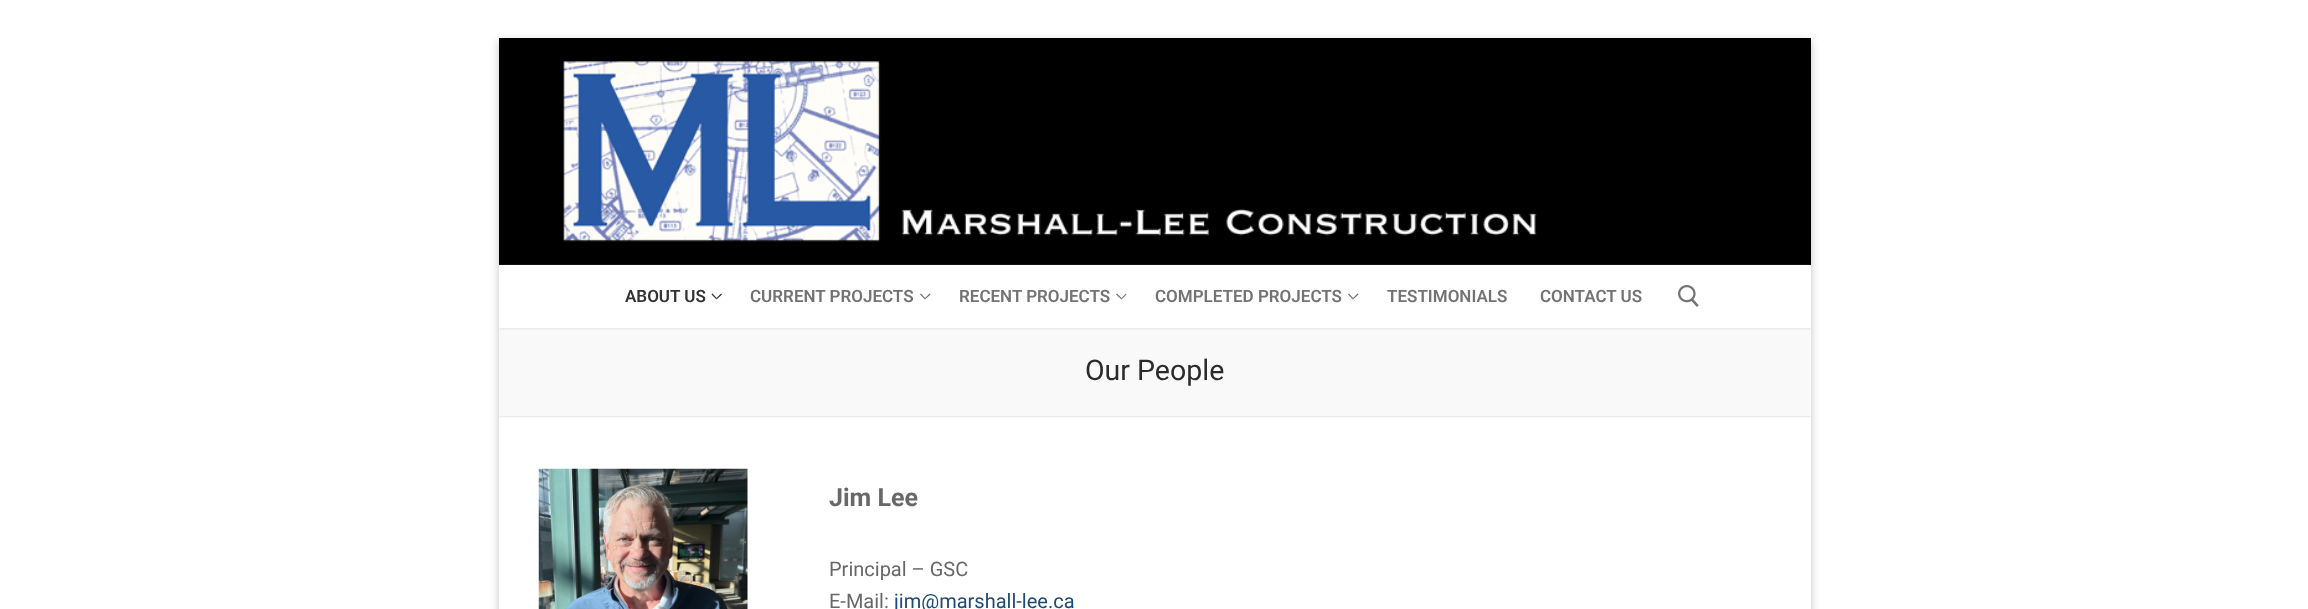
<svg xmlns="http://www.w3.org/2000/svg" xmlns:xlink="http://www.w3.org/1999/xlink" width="2308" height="609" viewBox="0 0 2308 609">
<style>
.cls-1{font:600 17px Roboto;fill:#333333}
.cls-2{font:600 17px Roboto;fill:#737373}
.cls-3{font:28.5px Roboto;fill:#2b2b2b}
.cls-4{font:bold 25px Roboto;fill:#686868}
.cls-5{font:20px Roboto;fill:#686868}
.cls-6{font:20px Roboto;fill:#1e4b75}
</style>
<defs>
<clipPath id="clip1"><path d="M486 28H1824V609H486ZM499 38H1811V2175H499Z" clip-rule="evenodd"/></clipPath>
</defs>
<rect width="100%" height="100%" fill="#ffffff"/>
<g clip-path="url(#clip1)">
<rect fill="#000000" fill-opacity="0.23" filter="blur(4px)" x="499" y="41" width="1312" height="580"/>
</g>
<rect fill="#000000" x="499" y="38" width="1312" height="227"/>
<image xlink:href="image0.png" x="563" y="61" width="974" height="181"/>
<rect fill="#f9f9f9" x="499" y="328" width="1312" height="90"/>
<rect fill="#e1e5ea" filter="blur(1px)" x="499" y="266" width="1312" height="63"/>
<rect fill="#ffffff" x="499" y="265" width="1312" height="63"/>
<path fill="#333333" d="M716.5 299.5L711.5 294.5L712.5 293.5L716.5 298Z"/>
<path fill="#000000" fill-opacity="0.8" d="M722 294.5L716.5 299.5V298L721 293.5Z"/>
<path fill="#737373" d="M925 299.5L920 294.5L921 293.5L925 298ZM930.5 294.5L925 299.5V298L929.5 293.5Z"/>
<path fill="#737373" d="M1121.5 299.5L1116 294.5L1117 293.5L1121.5 298Z"/>
<path fill="#000000" fill-opacity="0.55" d="M1126.5 294.5L1121.5 299.5V298L1126 293.5Z"/>
<path fill="#737373" d="M1353 299.5L1348 294.5L1349 293.5L1353 298ZM1358.5 294.5L1353 299.5V298L1357.5 293.5Z"/>
<image xlink:href="image1.png" x="1678" y="285" width="21" height="22"/>
<rect fill="#eaecee" x="499" y="416" width="1312" height="1"/>
<image xlink:href="image2.png" x="538" y="468" width="210" height="141"/>
<text class="cls-1" x="625" y="302">ABOUT US</text>
<text class="cls-2" x="750" y="302">CURRENT PROJECTS</text>
<text class="cls-2" x="959" y="302">RECENT PROJECTS</text>
<text class="cls-2" x="1155" y="302">COMPLETED PROJECTS</text>
<text class="cls-2" x="1387" y="302">TESTIMONIALS</text>
<text class="cls-2" x="1540" y="302">CONTACT US</text>
<text class="cls-3" x="1085" y="380">Our People</text>
<text class="cls-4" x="829" y="506">Jim Lee</text>
<text class="cls-5"><tspan x="829" y="576">Principal – GSC</tspan><tspan x="829" y="608">E-Mail:</tspan></text>
<text class="cls-6" x="894" y="608">jim@marshall-lee.ca</text>
</svg>
